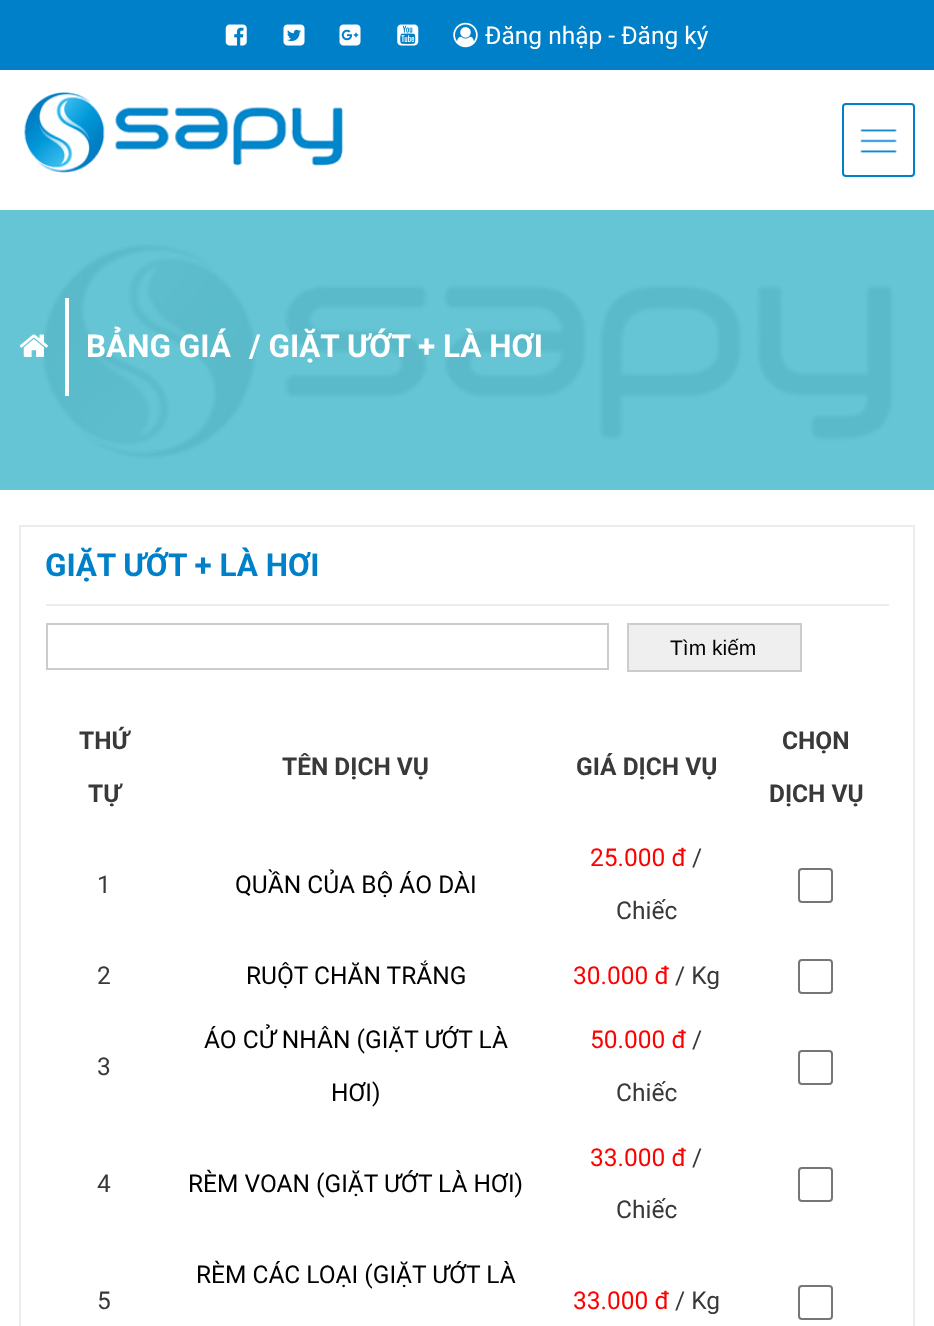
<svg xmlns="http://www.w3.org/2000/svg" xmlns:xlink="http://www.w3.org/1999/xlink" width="934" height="1326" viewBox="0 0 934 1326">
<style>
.cls-1{font:24.5px Roboto;fill:#ffffff}
.cls-2{font:bold 31.5px Roboto;fill:#ffffff}
.cls-3{font:bold 31.5px Roboto;fill:#0080c9}
.cls-4{font:21px Liberation Sans;fill:#000000}
.cls-5{font:bold 24.5px Roboto;fill:#393939}
.cls-6{font:24.5px Roboto;fill:#393939}
.cls-7{font:24.5px Roboto;fill:#000000}
.cls-8{font:24.5px Roboto;fill:#ff0000}
</style>
<rect width="100%" height="100%" fill="#ffffff"/>
<rect fill="#66c5d4" x="0" y="210" width="934" height="280"/>
<rect fill="#0080c9" x="0" y="0" width="934" height="70"/>
<image xlink:href="image0.png" x="225" y="24" width="22" height="22"/>
<image xlink:href="image1.png" x="283" y="24" width="22" height="22"/>
<image xlink:href="image2.png" x="339" y="24" width="22" height="22"/>
<image xlink:href="image3.png" x="397" y="24" width="22" height="22"/>
<image xlink:href="image4.png" x="453" y="22" width="25" height="26"/>
<image xlink:href="image5.png" x="23" y="91" width="321" height="82"/>
<image xlink:href="image6.png" x="860" y="129" width="37" height="24"/>
<rect fill="none" stroke="#0080c9" stroke-width="2" x="843" y="104" width="71" height="72" rx="3"/>
<image xlink:href="image7.png" x="41" y="244" width="853" height="216"/>
<rect fill="#ffffff" x="65" y="298" width="4" height="98"/>
<image xlink:href="image8.png" x="19" y="334" width="29" height="23"/>
<rect fill="none" stroke="#ececec" stroke-width="2" x="20" y="526" width="894" height="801"/>
<rect fill="#ececec" x="46" y="604" width="843" height="2"/>
<rect fill="none" stroke="#cccccc" stroke-width="2" x="47" y="624" width="561" height="45"/>
<rect fill="#efefef" stroke="#cccccc" stroke-width="2" x="628" y="624" width="173" height="47"/>
<rect fill="none" stroke="#767676" stroke-width="2" x="799" y="869" width="33" height="33" rx="3"/>
<rect fill="none" stroke="#767676" stroke-width="2" x="799" y="960" width="33" height="33" rx="3"/>
<rect fill="none" stroke="#767676" stroke-width="2" x="799" y="1051" width="33" height="33" rx="3"/>
<rect fill="none" stroke="#767676" stroke-width="2" x="799" y="1168" width="33" height="33" rx="3"/>
<rect fill="none" stroke="#767676" stroke-width="2" x="799" y="1286" width="33" height="33" rx="3"/>
<text class="cls-1" x="485" y="44">Đăng nhập - Đăng ký</text>
<text class="cls-2" x="86" y="357">BẢNG GIÁ</text>
<text class="cls-2" x="249" y="357">/ GIẶT ƯỚT + LÀ HƠI</text>
<text class="cls-3" x="45" y="576">GIẶT ƯỚT + LÀ HƠI</text>
<text class="cls-4" x="670" y="655">Tìm kiếm</text>
<text class="cls-5" x="79" y="749">THỨ</text>
<text class="cls-5" x="88" y="802">TỰ</text>
<text class="cls-5" x="282" y="775">TÊN DỊCH VỤ</text>
<text class="cls-5" x="576" y="775">GIÁ DỊCH VỤ</text>
<text class="cls-5" x="782" y="749">CHỌN</text>
<text class="cls-5" x="769" y="802">DỊCH VỤ</text>
<text class="cls-6" x="97" y="893">1</text>
<text class="cls-7" x="235" y="893">QUẦN CỦA BỘ ÁO DÀI</text>
<text class="cls-8" x="590" y="866">25.000 đ</text>
<text class="cls-6" x="692" y="866">/</text>
<text class="cls-6" x="616" y="919">Chiếc</text>
<text class="cls-6" x="97" y="984">2</text>
<text class="cls-7" x="246" y="984">RUỘT CHĂN TRẮNG</text>
<text class="cls-8" x="573" y="984">30.000 đ</text>
<text class="cls-6" x="675" y="984">/ Kg</text>
<text class="cls-6" x="97" y="1075">3</text>
<text class="cls-7" x="204" y="1048">ÁO CỬ NHÂN (GIẶT ƯỚT LÀ</text>
<text class="cls-7" x="331" y="1101">HƠI)</text>
<text class="cls-8" x="590" y="1048">50.000 đ</text>
<text class="cls-6" x="692" y="1048">/</text>
<text class="cls-6" x="616" y="1101">Chiếc</text>
<text class="cls-6" x="97" y="1192">4</text>
<text class="cls-7" x="188" y="1192">RÈM VOAN (GIẶT ƯỚT LÀ HƠI)</text>
<text class="cls-8" x="590" y="1166">33.000 đ</text>
<text class="cls-6" x="692" y="1166">/</text>
<text class="cls-6" x="616" y="1218">Chiếc</text>
<text class="cls-7" x="196" y="1283">RÈM CÁC LOẠI (GIẶT ƯỚT LÀ</text>
<text class="cls-6" x="97" y="1309">5</text>
<text class="cls-8" x="573" y="1309">33.000 đ</text>
<text class="cls-6" x="675" y="1309">/ Kg</text>
</svg>
